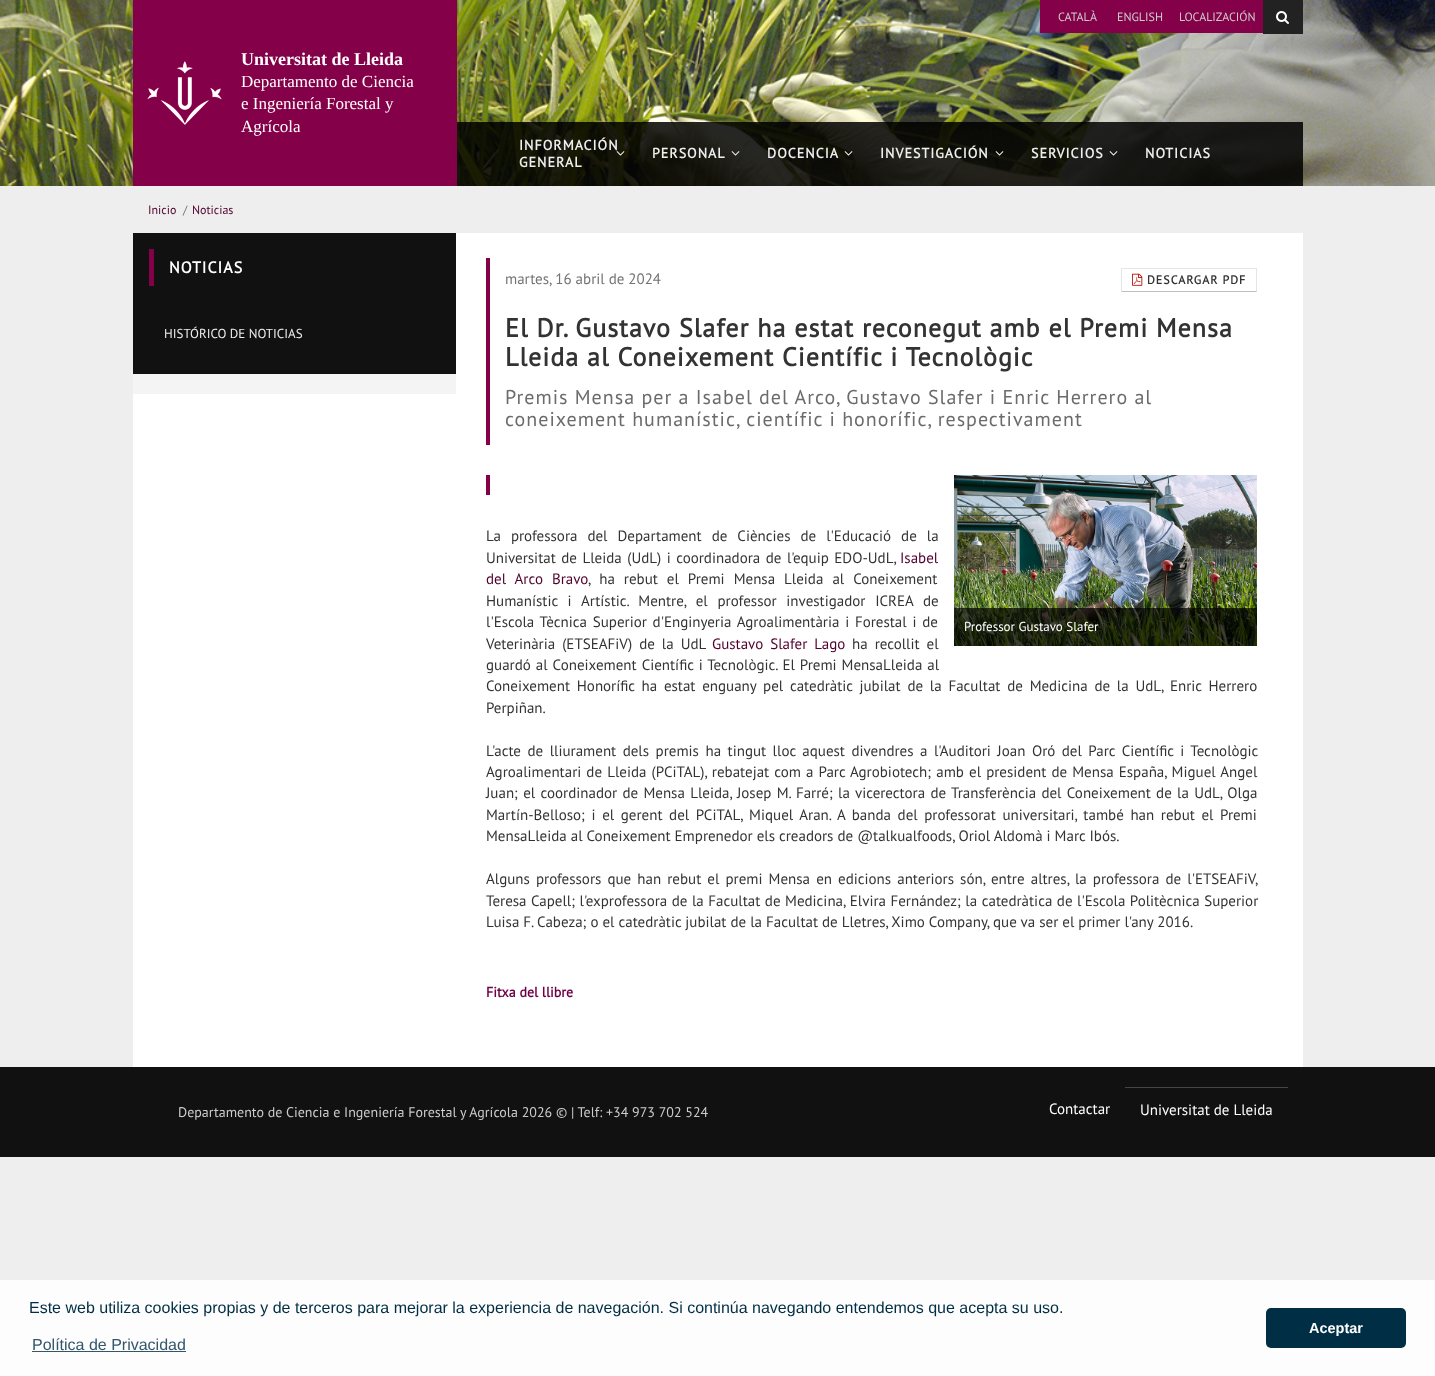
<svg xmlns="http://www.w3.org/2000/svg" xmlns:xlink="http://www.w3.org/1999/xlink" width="1435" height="1376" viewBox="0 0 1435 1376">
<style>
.cls-1{font:12px PT Sans;fill:#cccccc}
.cls-2{font:bold 18px Liberation Serif;fill:#ffffff}
.cls-3{font:17px Liberation Serif;fill:#ffffff}
.cls-4{font:bold 14px PT Sans;letter-spacing:1px;fill:#eeeeee}
.cls-5{font:12px PT Sans;fill:#51002c}
.cls-6{font:12px PT Sans;fill:#737373}
.cls-7{font:bold 16px PT Sans;letter-spacing:1px;fill:#ffffff}
.cls-8{font:13px PT Sans;fill:#eeeeee}
.cls-9{font:15px PT Sans;fill:#737373}
.cls-10{font:bold 26px PT Sans;letter-spacing:1px;fill:#333333}
.cls-11{font:20px PT Sans;letter-spacing:1px;fill:#6b6b6b}
.cls-12{font:bold 12px PT Sans;letter-spacing:1px;fill:#333333}
.cls-13{font:15px PT Sans;fill:#333333}
.cls-14{font:15px PT Sans;fill:#51002c}
.cls-15{font:13px PT Sans;fill:#ffffff}
.cls-16{font:bold 14px PT Sans;fill:#6f0047}
.cls-17{font:14px PT Sans;fill:#cccccc}
.cls-18{font:15px PT Sans;fill:#ffffff}
.cls-19{font:16px Liberation Sans;fill:#002e45}
.cls-20{font:16px Liberation Sans;fill:#33576a}
.cls-21{font:bold 14.5px Liberation Sans;fill:#ffffff}
</style>
<rect width="100%" height="100%" fill="#eeeeee"/>
<image xlink:href="image0.png" x="0" y="0" width="1435" height="186"/>
<rect fill="#840048" x="1040" y="0" width="223" height="33"/>
<rect fill="#222222" x="1263" y="0" width="40" height="34"/>
<image xlink:href="image1.png" x="1276" y="11" width="13" height="13"/>
<rect fill="#840048" x="133" y="0" width="324" height="186"/>
<image xlink:href="image2.png" x="147" y="61" width="75" height="64"/>
<rect fill="#000000" fill-opacity="0.85" x="457" y="122" width="846" height="64"/>
<image xlink:href="image3.png" x="616" y="151" width="9" height="5"/>
<image xlink:href="image4.png" x="731" y="151" width="9" height="5"/>
<image xlink:href="image5.png" x="844" y="151" width="9" height="5"/>
<image xlink:href="image6.png" x="995" y="151" width="9" height="5"/>
<image xlink:href="image7.png" x="1109" y="151" width="9" height="5"/>
<rect fill="#ffffff" x="133" y="233" width="1170" height="834"/>
<rect fill="#f4f4f4" x="133" y="374" width="323" height="20"/>
<rect fill="#111111" x="133" y="233" width="323" height="141"/>
<rect fill="#840048" x="149" y="249" width="5" height="37"/>
<rect fill="#840048" x="486" y="258" width="4" height="187"/>
<path fill="#e6e6e6" d="M1121 268H1257L1256 269H1122Z"/>
<path fill="#000000" fill-opacity="0.1" d="M1257 268V292L1256 291V269Z"/>
<path fill="#000000" fill-opacity="0.25" d="M1257 292H1121L1122 291H1256Z"/>
<path fill="#000000" fill-opacity="0.1" d="M1121 292V268L1122 269V291Z"/>
<image xlink:href="image8.png" x="1132" y="273" width="11" height="13"/>
<rect fill="#840048" x="486" y="475" width="4" height="20"/>
<image xlink:href="image9.png" x="954" y="475" width="303" height="171"/>
<rect fill="#000000" fill-opacity="0.7" x="954" y="608" width="303" height="38"/>
<rect fill="#111111" x="0" y="1067" width="1435" height="90"/>
<rect fill="#444444" x="1125" y="1087" width="163" height="1"/>
<rect fill="#fdfdfd" x="0" y="1280" width="1435" height="96"/>
<rect fill="#33576a" x="32" y="1351" width="154" height="1"/>
<rect fill="#002e45" x="1266" y="1308" width="140" height="40" rx="5"/>
<text class="cls-1" x="1058" y="21">CATALÀ</text>
<text class="cls-1" x="1117" y="21">ENGLISH</text>
<text class="cls-1" x="1179" y="21">LOCALIZACIÓN</text>
<text class="cls-2" x="241" y="65">Universitat de Lleida</text>
<text class="cls-3"><tspan x="241" y="87">Departamento de Ciencia</tspan><tspan x="241" y="109">e Ingeniería Forestal y</tspan><tspan x="241" y="132">Agrícola</tspan></text>
<text class="cls-4"><tspan x="519" y="150">INFORMACIÓN</tspan><tspan x="519" y="167">GENERAL</tspan></text>
<text class="cls-4" x="652" y="158">PERSONAL</text>
<text class="cls-4" x="767" y="158">DOCENCIA</text>
<text class="cls-4" x="880" y="158">INVESTIGACIÓN</text>
<text class="cls-4" x="1031" y="158">SERVICIOS</text>
<text class="cls-4" x="1145" y="158">NOTICIAS</text>
<text class="cls-5" x="148" y="214">Inicio</text>
<text class="cls-6" x="183" y="214">/</text>
<text class="cls-5" x="192" y="214">Noticias</text>
<text class="cls-7" x="169" y="273">NOTICIAS</text>
<text class="cls-8" x="164" y="338">HISTÓRICO DE NOTICIAS</text>
<text class="cls-9" x="505" y="284">martes, 16 abril de 2024</text>
<text class="cls-10"><tspan x="505" y="337">El Dr. Gustavo Slafer ha estat reconegut amb el Premi Mensa</tspan><tspan x="505" y="366">Lleida al Coneixement Científic i Tecnològic</tspan></text>
<text class="cls-11"><tspan x="505" y="404">Premis Mensa per a Isabel del Arco, Gustavo Slafer i Enric Herrero al</tspan><tspan x="505" y="426">coneixement humanístic, científic i honorífic, respectivament</tspan></text>
<text class="cls-12" x="1147" y="284">DESCARGAR PDF</text>
<text class="cls-13"><tspan x="486" y="541" word-spacing="6">La professora del Departament de Ciències de l'Educació de la</tspan><tspan x="486" y="563" word-spacing="1.5">Universitat de Lleida (UdL) i coordinadora de l'equip EDO-UdL,</tspan></text>
<text class="cls-14" x="900" y="563">Isabel</text>
<text class="cls-14" x="486" y="584" word-spacing="5">del Arco Bravo</text>
<text class="cls-13" x="588" y="584" word-spacing="5">, ha rebut el Premi Mensa Lleida al Coneixement</text>
<text class="cls-13"><tspan x="486" y="606" word-spacing="5.75">Humanístic i Artístic. Mentre, el professor investigador ICREA de</tspan><tspan x="486" y="627" word-spacing="1.75">l'Escola Tècnica Superior d'Enginyeria Agroalimentària i Forestal i de</tspan><tspan x="486" y="649" word-spacing="3">Veterinària (ETSEAFiV) de la UdL</tspan></text>
<text class="cls-14" x="712" y="649" word-spacing="3">Gustavo Slafer Lago</text>
<text class="cls-13" x="852" y="649" word-spacing="3">ha recollit el</text>
<text class="cls-13"><tspan x="486" y="670" word-spacing="1">guardó al Coneixement Científic i Tecnològic. El Premi MensaLleida al</tspan><tspan x="486" y="691" word-spacing="2.75">Coneixement Honorífic ha estat enguany pel catedràtic jubilat de la Facultat de Medicina de la UdL, Enric Herrero</tspan><tspan x="486" y="713">Perpiñan.</tspan></text>
<text class="cls-13"><tspan x="486" y="756" word-spacing="2.5">L'acte de lliurament dels premis ha tingut lloc aquest divendres a l'Auditori Joan Oró del Parc Científic i Tecnològic</tspan><tspan x="486" y="777" word-spacing="1.1">Agroalimentari de Lleida (PCiTAL), rebatejat com a Parc Agrobiotech; amb el president de Mensa España, Miguel Angel</tspan><tspan x="486" y="798" word-spacing="1.3">Juan; el coordinador de Mensa Lleida, Josep M. Farré; la vicerectora de Transferència del Coneixement de la UdL, Olga</tspan><tspan x="486" y="820" word-spacing="2.6">Martín-Belloso; i el gerent del PCiTAL, Miquel Aran. A banda del professorat universitari, també han rebut el Premi</tspan><tspan x="486" y="841">MensaLleida al Coneixement Emprenedor els creadors de @talkualfoods, Oriol Aldomà i Marc Ibós.</tspan></text>
<text class="cls-13"><tspan x="486" y="884" word-spacing="2.1">Alguns professors que han rebut el premi Mensa en edicions anteriors són, entre altres, la professora de l'ETSEAFiV,</tspan><tspan x="486" y="906" word-spacing="0.5">Teresa Capell; l'exprofessora de la Facultat de Medicina, Elvira Fernández; la catedràtica de l'Escola Politècnica Superior</tspan><tspan x="486" y="927">Luisa F. Cabeza; o el catedràtic jubilat de la Facultat de Lletres, Ximo Company, que va ser el primer l'any 2016.</tspan></text>
<text class="cls-15" x="964" y="631">Professor Gustavo Slafer</text>
<text class="cls-16" x="486" y="997">Fitxa del llibre</text>
<text class="cls-17" x="178" y="1117">Departamento de Ciencia e Ingeniería Forestal y Agrícola 2026 © | Telf: +34 973 702 524</text>
<text class="cls-18" x="1049" y="1114">Contactar</text>
<text class="cls-18" x="1140" y="1115">Universitat de Lleida</text>
<text class="cls-19" x="29" y="1313">Este web utiliza cookies propias y de terceros para mejorar la experiencia de navegación. Si continúa navegando entendemos que acepta su uso.</text>
<text class="cls-20" x="32" y="1350">Política de Privacidad</text>
<text class="cls-21" x="1309" y="1333">Aceptar</text>
</svg>
